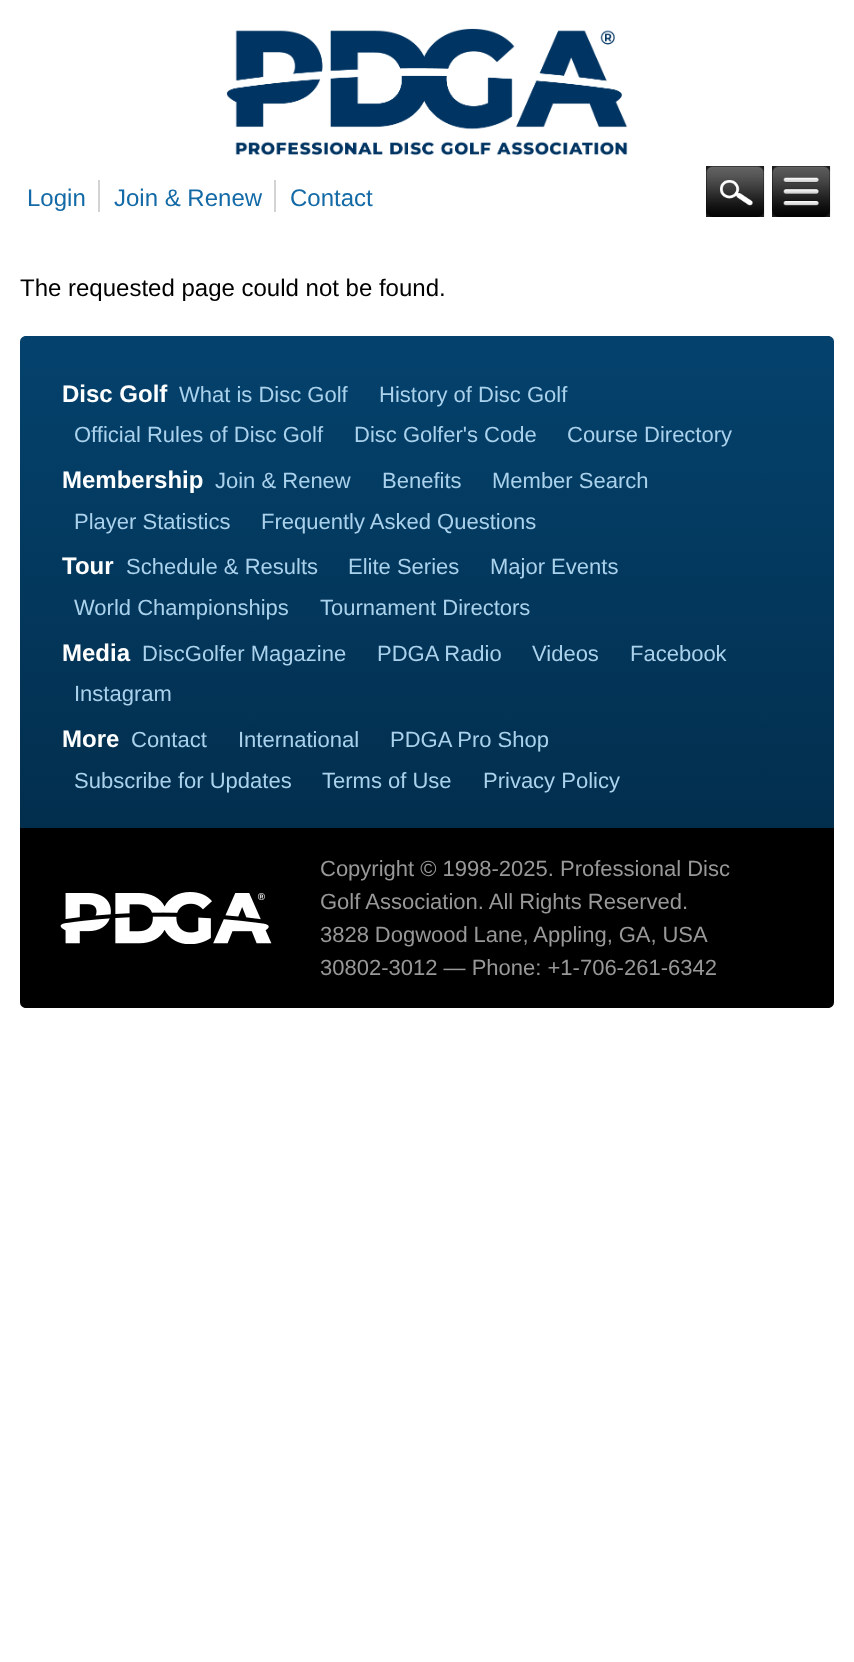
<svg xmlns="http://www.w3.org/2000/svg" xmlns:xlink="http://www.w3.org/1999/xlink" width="854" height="1662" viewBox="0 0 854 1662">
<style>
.cls-1{font:24px Liberation Sans;fill:#136aa6}
.cls-2{font:24px Liberation Sans;fill:#000000}
.cls-3{font:bold 24px Liberation Sans;fill:#ffffff}
.cls-4{font:22px Liberation Sans;fill:#abd2ec}
.cls-5{font:22px Liberation Sans;fill:#989898}
</style>
<defs>
<linearGradient id="g1" gradientUnits="userSpaceOnUse" x1="427" y1="336" x2="427" y2="828"><stop offset="0" stop-color="#04426d"/><stop offset="1" stop-color="#022e4d"/></linearGradient>
</defs>
<rect width="100%" height="100%" fill="#ffffff"/>
<image xlink:href="image0.png" x="226" y="28" width="402" height="128"/>
<rect fill="#d3d3d3" x="98" y="180" width="2" height="32"/>
<rect fill="#d3d3d3" x="274" y="180" width="2" height="32"/>
<image xlink:href="image1.png" x="706" y="166" width="59" height="51"/>
<image xlink:href="image2.png" x="772" y="166" width="59" height="51"/>
<path fill="url(#g1)" d="M26 336H828C831.5 336 834 338.5 834 342V828H20V342C20 338.5 22.5 336 26 336Z"/>
<path fill="#000000" d="M20 828H834V1002C834 1005.5 831.5 1008 828 1008H26C22.5 1008 20 1005.5 20 1002Z"/>
<image xlink:href="image3.png" x="60" y="892" width="212" height="52"/>
<text class="cls-1" x="27" y="206">Login</text>
<text class="cls-1" x="114" y="206">Join &amp; Renew</text>
<text class="cls-1" x="290" y="206">Contact</text>
<text class="cls-2" x="20" y="296">The requested page could not be found.</text>
<text class="cls-3" x="62" y="402">Disc Golf</text>
<text class="cls-4" x="179" y="402">What is Disc Golf</text>
<text class="cls-4" x="379" y="402">History of Disc Golf</text>
<text class="cls-4" x="74" y="442">Official Rules of Disc Golf</text>
<text class="cls-4" x="354" y="442">Disc Golfer's Code</text>
<text class="cls-4" x="567" y="442">Course Directory</text>
<text class="cls-3" x="62" y="488">Membership</text>
<text class="cls-4" x="215" y="488">Join &amp; Renew</text>
<text class="cls-4" x="382" y="488">Benefits</text>
<text class="cls-4" x="492" y="488">Member Search</text>
<text class="cls-4" x="74" y="529">Player Statistics</text>
<text class="cls-4" x="261" y="529">Frequently Asked Questions</text>
<text class="cls-3" x="62" y="574">Tour</text>
<text class="cls-4" x="126" y="574">Schedule &amp; Results</text>
<text class="cls-4" x="348" y="574">Elite Series</text>
<text class="cls-4" x="490" y="574">Major Events</text>
<text class="cls-4" x="74" y="615">World Championships</text>
<text class="cls-4" x="320" y="615">Tournament Directors</text>
<text class="cls-3" x="62" y="661">Media</text>
<text class="cls-4" x="142" y="661">DiscGolfer Magazine</text>
<text class="cls-4" x="377" y="661">PDGA Radio</text>
<text class="cls-4" x="532" y="661">Videos</text>
<text class="cls-4" x="630" y="661">Facebook</text>
<text class="cls-4" x="74" y="701">Instagram</text>
<text class="cls-3" x="62" y="747">More</text>
<text class="cls-4" x="131" y="747">Contact</text>
<text class="cls-4" x="238" y="747">International</text>
<text class="cls-4" x="390" y="747">PDGA Pro Shop</text>
<text class="cls-4" x="74" y="788">Subscribe for Updates</text>
<text class="cls-4" x="322" y="788">Terms of Use</text>
<text class="cls-4" x="483" y="788">Privacy Policy</text>
<text class="cls-5"><tspan x="320" y="876">Copyright © 1998-2025. Professional Disc</tspan><tspan x="320" y="909">Golf Association. All Rights Reserved.</tspan><tspan x="320" y="942" word-spacing="-0.25">3828 Dogwood Lane, Appling, GA, USA</tspan><tspan x="320" y="975">30802-3012 — Phone: +1-706-261-6342</tspan></text>
</svg>
